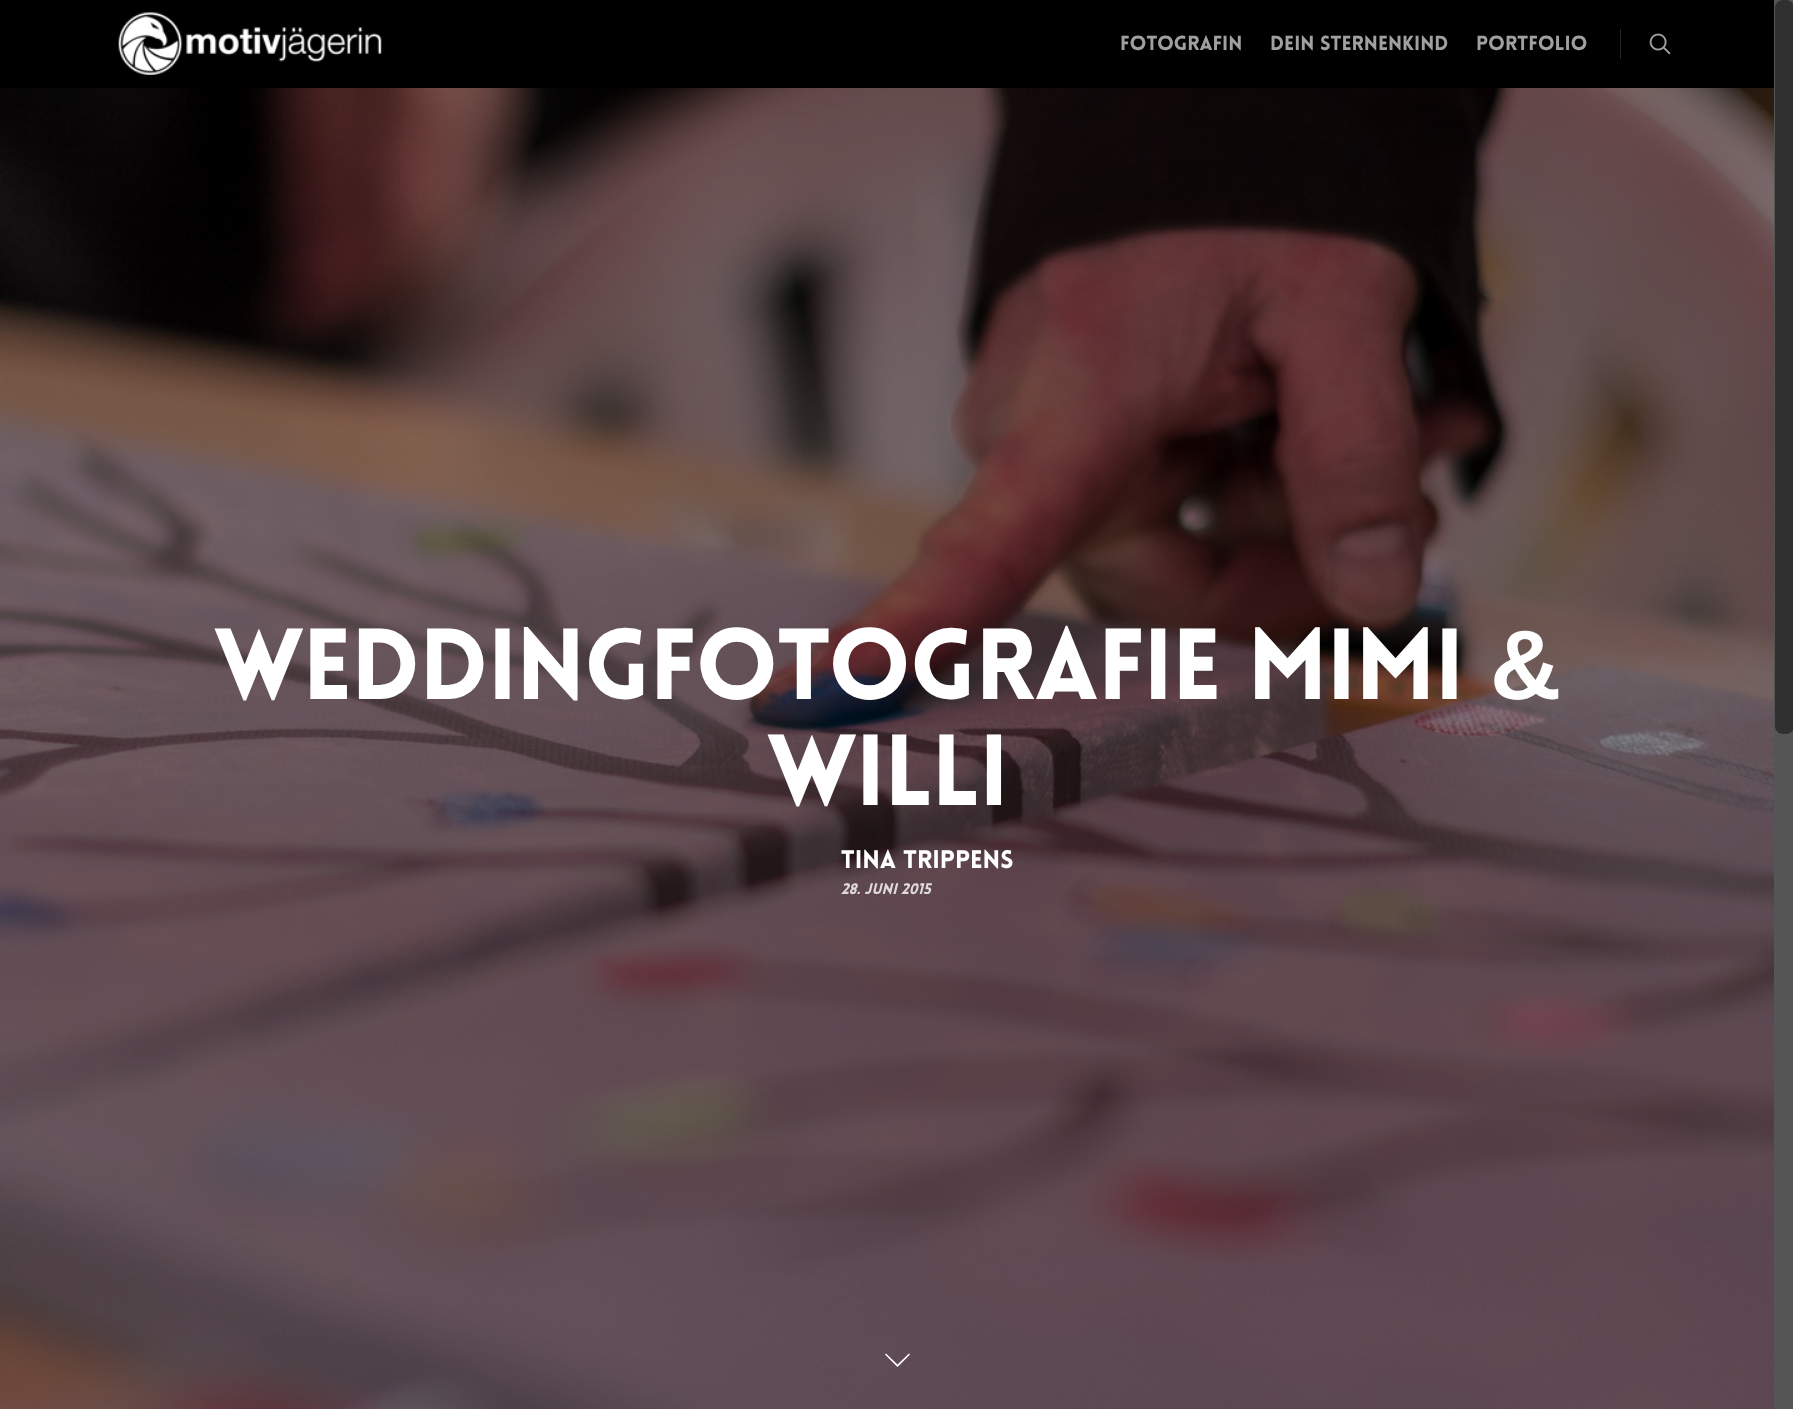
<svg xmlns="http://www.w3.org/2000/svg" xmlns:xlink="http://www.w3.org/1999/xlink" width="1793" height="1409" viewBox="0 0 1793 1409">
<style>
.cls-1{font:900 20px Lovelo;fill:#a0a0a0}
.cls-2{font:900 98.7px Lovelo;letter-spacing:-1.25px;fill:#ffffff}
.cls-3{font:bold 98.7px Liberation Sans;letter-spacing:-1.25px;fill:#ffffff}
.cls-4{font:900 25px Lovelo;fill:#ffffff}
.cls-5{font:italic 900 15px Lovelo;fill:#dfdadc}
</style>
<rect width="100%" height="100%" fill="#ffffff"/>
<rect fill="#000000" x="0" y="0" width="1774" height="88"/>
<image xlink:href="image0.png" x="118" y="12" width="264" height="63"/>
<rect fill="#262626" x="1620" y="29" width="1" height="30"/>
<image xlink:href="image1.png" x="1649" y="33" width="22" height="22"/>
<rect fill="#555555" x="1774" y="0" width="19" height="1409"/>
<rect fill="#303030" x="1775" y="0" width="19" height="734" rx="8"/>
<image xlink:href="image2.png" x="0" y="88" width="1774" height="1321"/>
<path fill="#ffffff" d="M909 1353.5L910 1354.5L897.5 1367L885 1354.5L886 1353.5L897.5 1364.5Z"/>
<text class="cls-1" x="1120" y="50">FOTOGRAFIN</text>
<text class="cls-1" x="1270" y="50">DEIN STERNENKIND</text>
<text class="cls-1" x="1476" y="50">PORTFOLIO</text>
<text class="cls-2" x="214" y="699">Weddingfotografie Mimi</text>
<text class="cls-3" x="1490" y="699">&amp;</text>
<text class="cls-2" x="767" y="805">Willi</text>
<text class="cls-4" x="841" y="868">Tina Trippens</text>
<text class="cls-5" x="841" y="894">28. Juni 2015</text>
</svg>
